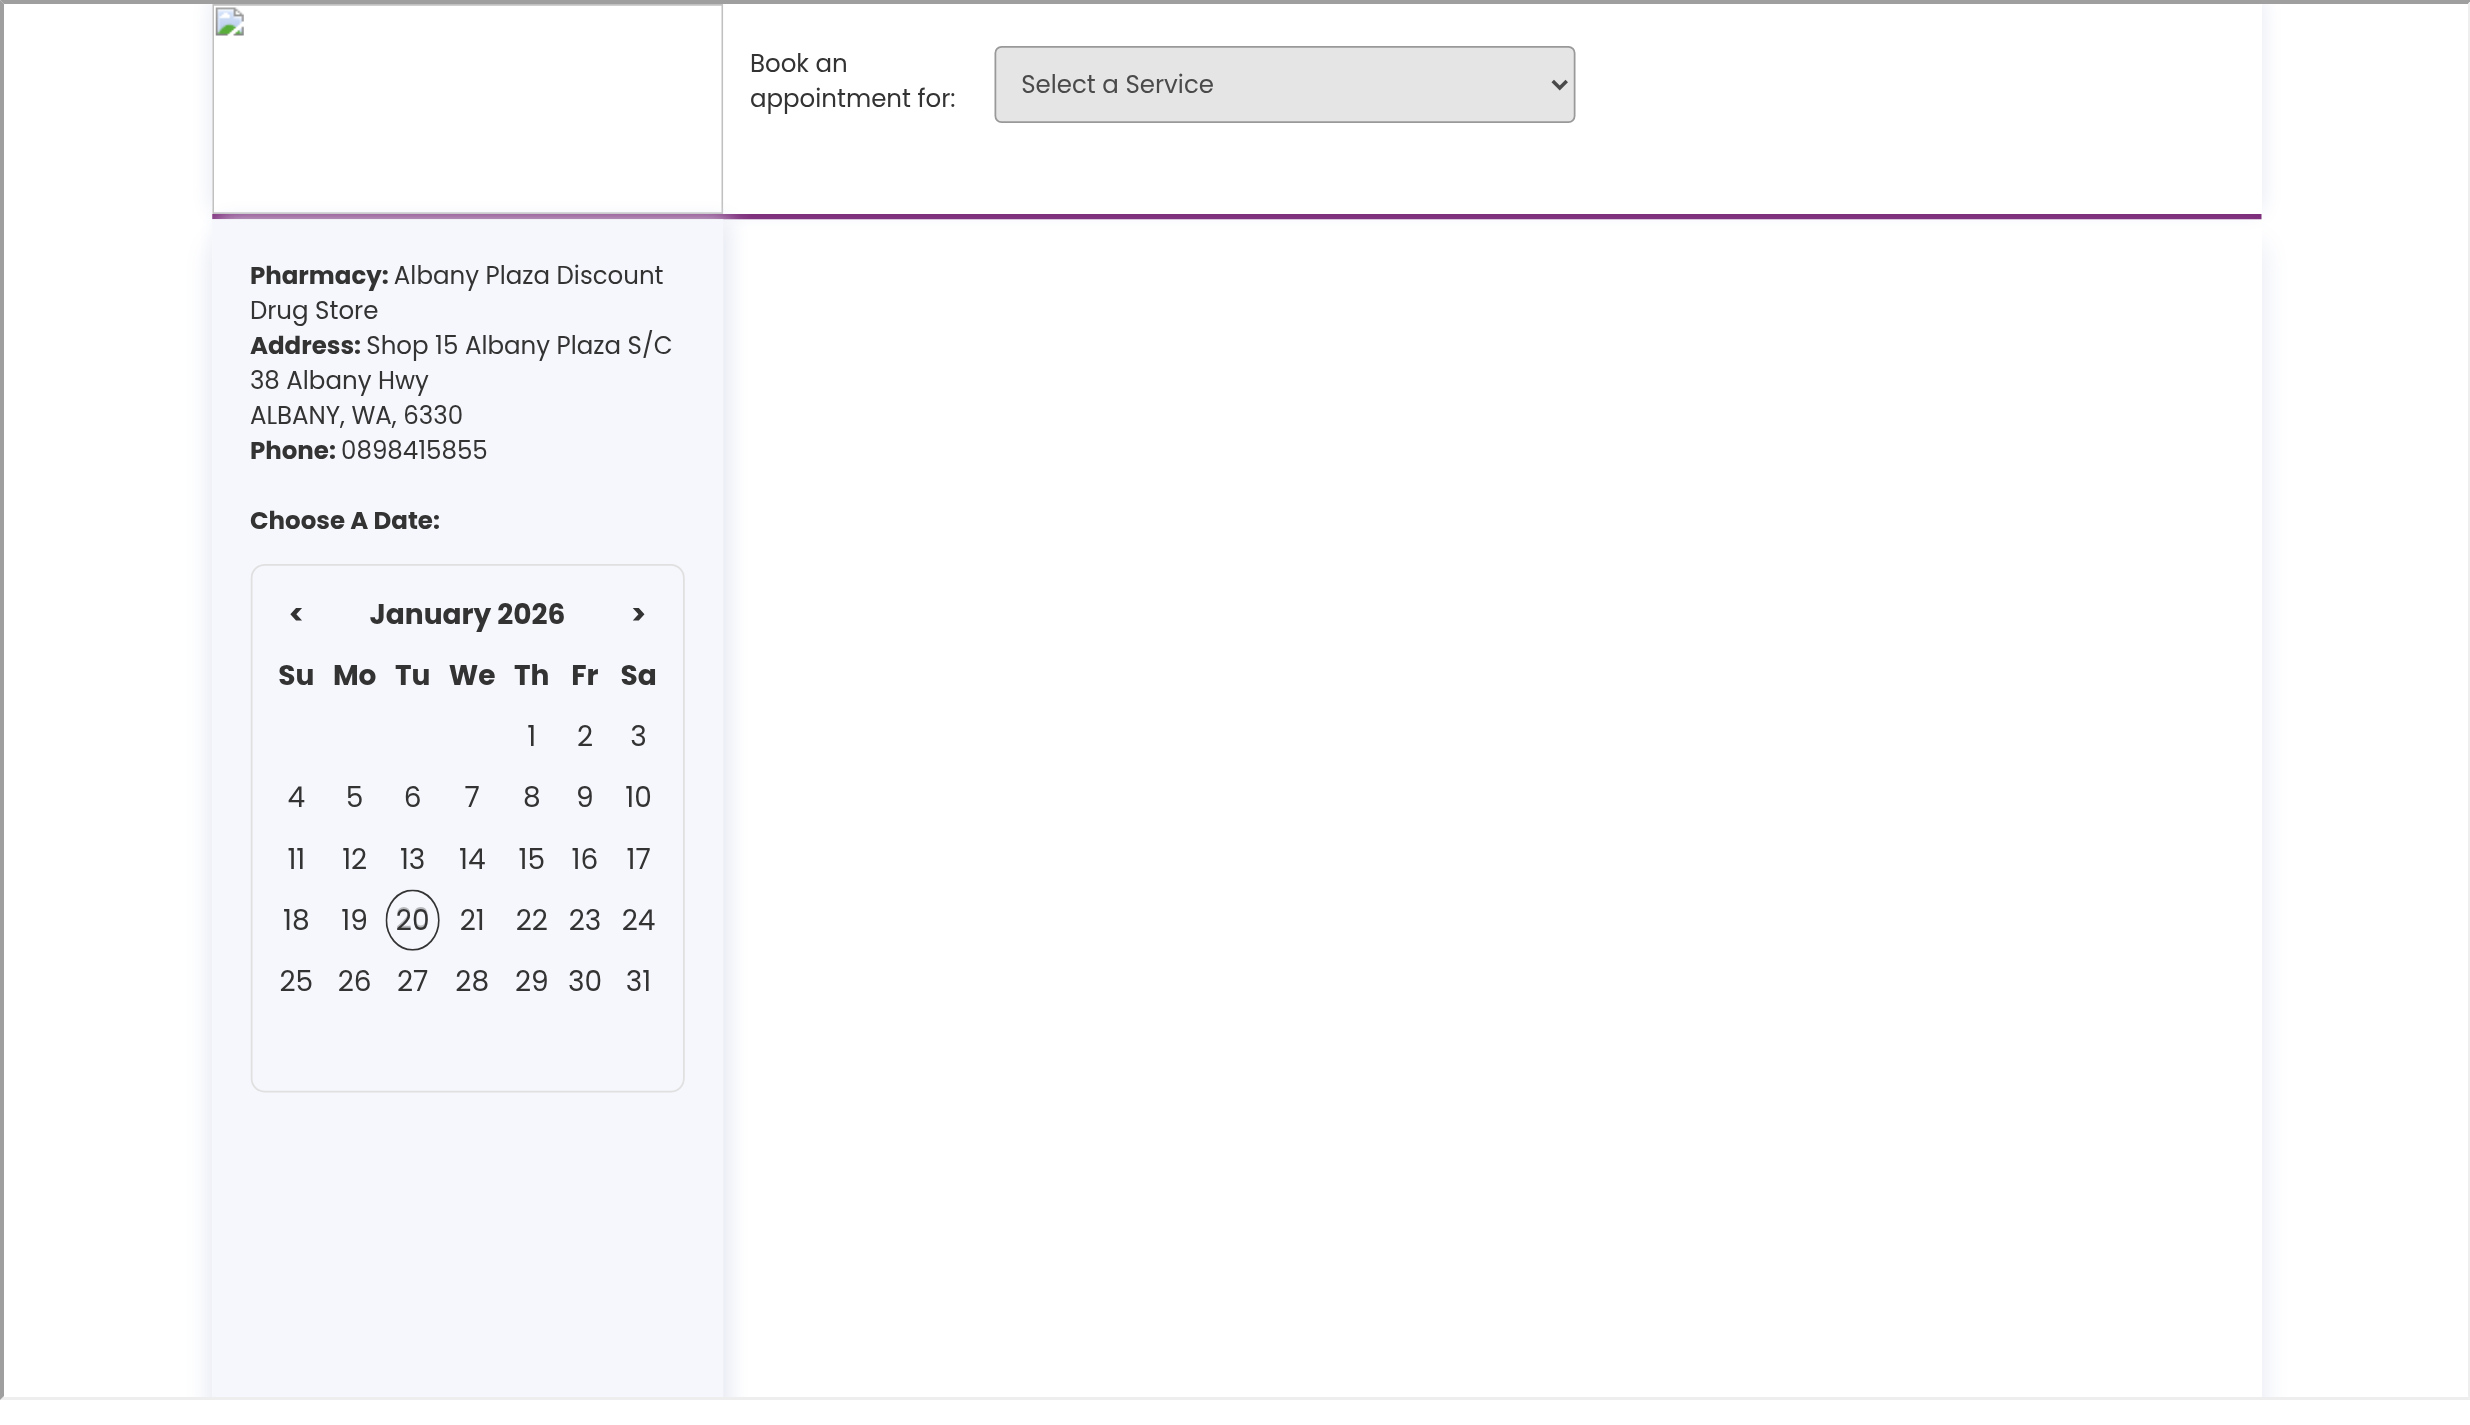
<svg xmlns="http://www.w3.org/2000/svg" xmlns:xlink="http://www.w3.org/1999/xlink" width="2470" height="1425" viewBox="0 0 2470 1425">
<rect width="100%" height="100%" fill="#ffffff"/>
<path fill="#9f9f9f" d="M0 0H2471L2468 4H4Z"/>
<path fill="#eeeeee" d="M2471 0V1400L2468 1396V4Z"/>
<path fill="#eeeeee" d="M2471 1400H0L4 1396H2468Z"/>
<path fill="#9f9f9f" d="M0 1400V0L4 4V1396Z"/>
<image xlink:href="image0.png" x="4" y="4" width="2464" height="1393"/>
</svg>
